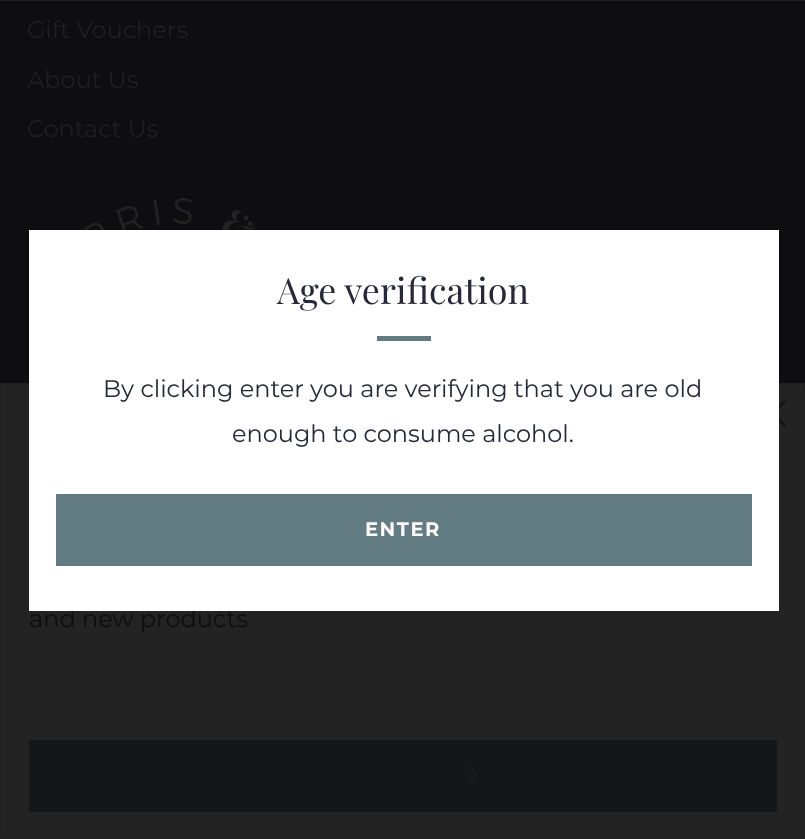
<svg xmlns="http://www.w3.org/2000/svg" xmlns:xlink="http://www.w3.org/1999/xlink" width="805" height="839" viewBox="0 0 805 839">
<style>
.cls-1{font:24px Montserrat;fill:#1f1f1f}
.cls-2{font:24px Montserrat;fill:#0e0e10}
.cls-3{font:36px Playfair Display;fill:#262938}
.cls-4{font:24px Montserrat;fill:#262938}
.cls-5{font:bold 19.5px Montserrat;letter-spacing:1.5px;fill:#fcf8f6}
</style>
<rect width="100%" height="100%" fill="#0e0e10"/>
<rect fill="#212121" x="0" y="0" width="805" height="1"/>
<image xlink:href="image0.png" x="82" y="198" width="174" height="32"/>
<rect fill="#232323" stroke="#212121" stroke-width="2" x="1" y="384" width="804" height="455"/>
<image xlink:href="image1.png" x="779" y="400" width="7" height="27"/>
<rect fill="#141617" x="29" y="740" width="748" height="72"/>
<path fill="#232322" d="M468 782.5L468.5 783.5L477 775L468.5 766L468 767L475.5 775Z"/>
<text class="cls-1" x="27" y="38">Gift Vouchers</text>
<text class="cls-1" x="27" y="88">About Us</text>
<text class="cls-1" x="27" y="137">Contact Us</text>
<text class="cls-2" x="29" y="627">and new products</text>
<rect fill="#ffffff" x="29" y="230" width="750" height="381"/>
<text class="cls-3" x="277" y="304">Age verification</text>
<rect fill="#637b82" x="377" y="336" width="54" height="5"/>
<text class="cls-4" x="103" y="397">By clicking enter you are verifying that you are old</text>
<text class="cls-4" x="232" y="442">enough to consume alcohol.</text>
<rect fill="#637b82" x="56" y="494" width="696" height="72"/>
<text class="cls-5" x="365" y="536">ENTER</text>
</svg>
